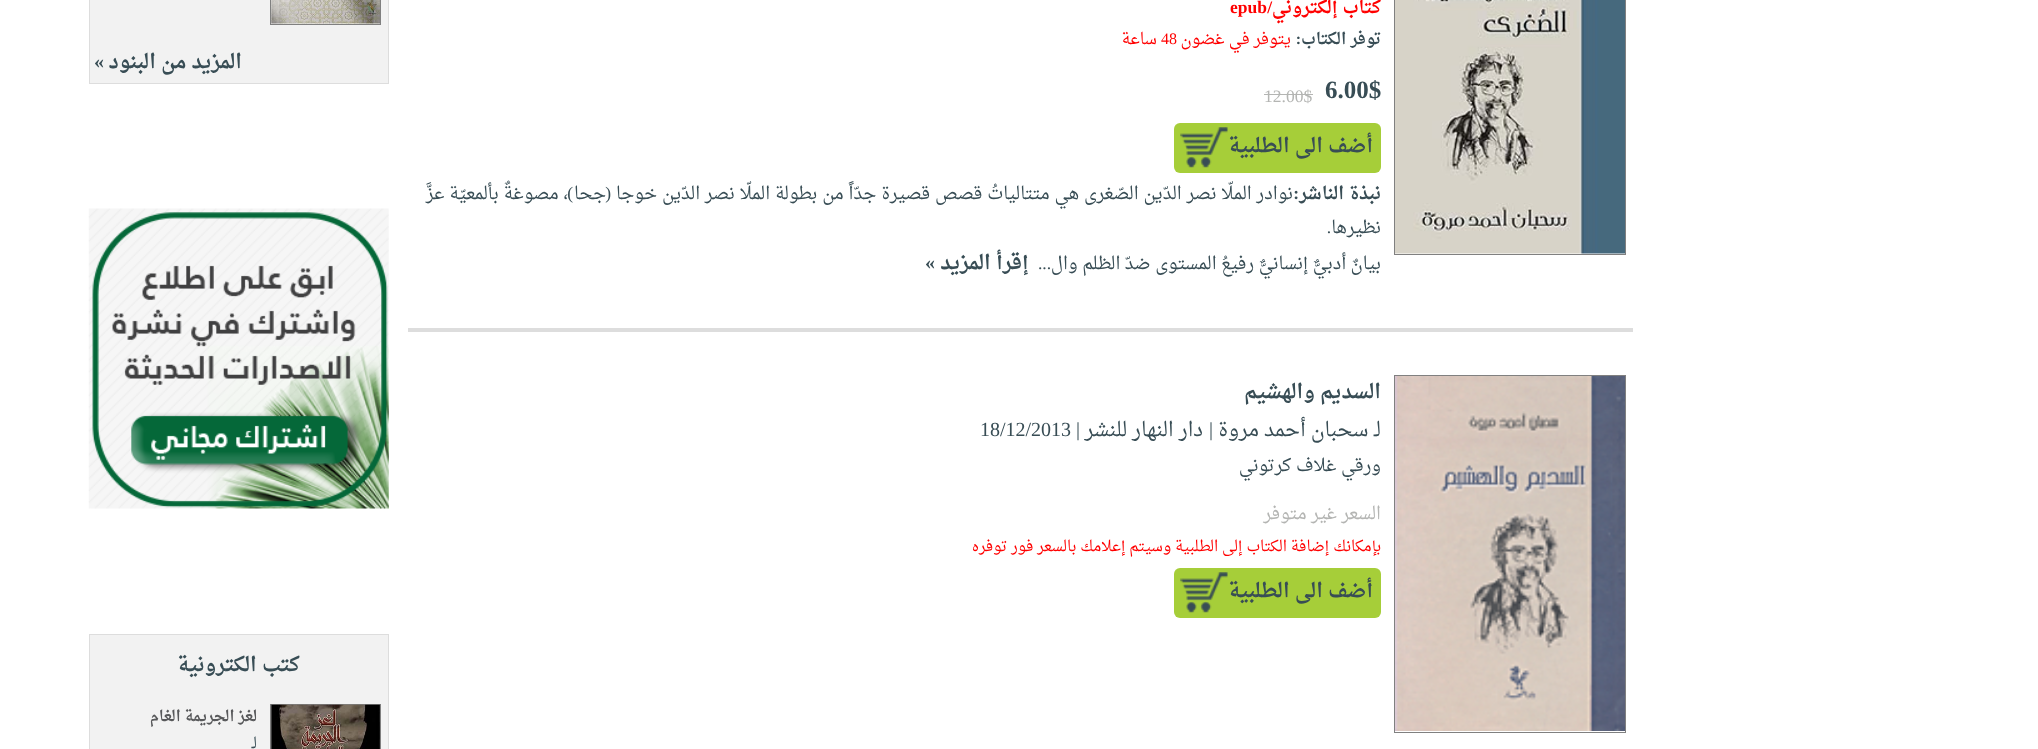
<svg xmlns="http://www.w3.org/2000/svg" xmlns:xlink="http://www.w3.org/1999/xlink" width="2038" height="749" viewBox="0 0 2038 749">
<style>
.cls-1{font:bold 17.5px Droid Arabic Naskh;direction:rtl;fill:#ff0000}
.cls-2{font:bold 17.5px Liberation Serif;direction:rtl;fill:#ff0000}
.cls-3{font:bold 17.5px Liberation Serif;fill:#ff0000}
.cls-4{font:bold 16px Droid Arabic Naskh;direction:rtl;fill:#384d55}
.cls-5{font:bold 16px Liberation Serif;direction:rtl;fill:#384d55}
.cls-6{font:16px Droid Arabic Naskh;direction:rtl;fill:#ff0000}
.cls-7{font:16px Liberation Serif;fill:#ff0000}
.cls-8{font:bold 25px Liberation Serif;fill:#384d55}
.cls-9{font:17.5px Liberation Serif;fill:#b4b5b3}
.cls-10{font:bold 20px Droid Arabic Naskh;direction:rtl;fill:#384d55}
.cls-11{font:bold 17.5px Droid Arabic Naskh;direction:rtl;fill:#384d55}
.cls-12{font:bold 17.5px Liberation Serif;direction:rtl;fill:#384d55}
.cls-13{font:17.5px Droid Arabic Naskh;direction:rtl;fill:#384d55}
.cls-14{font:17.5px Liberation Serif;direction:rtl;fill:#384d55}
.cls-15{font:bold 20px Liberation Serif;direction:rtl;fill:#384d55}
.cls-16{font:20px Droid Arabic Naskh;direction:rtl;fill:#384d55}
.cls-17{font:20px Liberation Serif;direction:rtl;fill:#384d55}
.cls-18{font:20px Liberation Serif;fill:#384d55}
.cls-19{font:17.5px Droid Arabic Naskh;direction:rtl;fill:#b4b5b3}
.cls-20{font:15px Droid Arabic Naskh;direction:rtl;fill:#ff0000}
.cls-21{font:bold 15px Droid Arabic Naskh;direction:rtl;fill:#58595b}
.cls-22{font:15px Droid Arabic Naskh;direction:rtl;fill:#384d55}
</style>
<rect width="100%" height="100%" fill="#ffffff"/>
<rect fill="#dddddd" x="408" y="328" width="1225" height="4"/>
<rect fill="none" stroke="#808080" x="1394.5" y="-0.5" width="231" height="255"/>
<image xlink:href="image0.png" x="1395" y="0" width="230" height="254"/>
<rect fill="#b4b5b3" x="1264" y="94" width="49" height="1"/>
<rect fill="#a6ce39" x="1174" y="123" width="207" height="50" rx="6"/>
<image xlink:href="image1.png" x="1180" y="127" width="48" height="41"/>
<rect fill="none" stroke="#808080" x="1394.5" y="375.5" width="231" height="357"/>
<image xlink:href="image2.png" x="1395" y="376" width="230" height="355"/>
<rect fill="#a6ce39" x="1174" y="568" width="207" height="50" rx="6"/>
<image xlink:href="image3.png" x="1180" y="572" width="48" height="41"/>
<rect fill="#f2f2f2" stroke="#dddddd" x="89.5" y="-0.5" width="299" height="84"/>
<rect fill="none" stroke="#808080" x="270.5" y="-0.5" width="110" height="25"/>
<image xlink:href="image4.png" x="271" y="0" width="109" height="24"/>
<image xlink:href="image5.png" x="88" y="208" width="301" height="301"/>
<rect fill="#f2f2f2" stroke="#dddddd" x="89.5" y="634.5" width="299" height="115"/>
<rect fill="none" stroke="#808080" x="270.5" y="704.5" width="110" height="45"/>
<image xlink:href="image6.png" x="271" y="704" width="109" height="45"/>
<text class="cls-1" x="1381" y="13">كتاب إلكتروني</text>
<text class="cls-2" x="1272" y="13">/</text>
<text class="cls-3" x="1230" y="13">epub</text>
<text class="cls-4" x="1381" y="44">توفر الكتاب</text>
<text class="cls-5" x="1301" y="44">:</text>
<text class="cls-6" x="1291" y="44">يتوفر في غضون</text>
<text class="cls-7" x="1161" y="44">48</text>
<text class="cls-6" x="1157" y="44">ساعة</text>
<text class="cls-8" x="1325" y="98">6.00$</text>
<text class="cls-9" x="1264" y="102">12.00$</text>
<text class="cls-10" x="1373" y="152">أضف الى الطلبية</text>
<text class="cls-11" x="1381" y="199" word-spacing="0.4">نبذة الناشر</text>
<text class="cls-12" x="1299" y="199">:</text>
<text class="cls-13" x="1293" y="199" word-spacing="0.4">نوادر الملّا نصر الدّين الصّغرى هي متتالياتُ قصص قصيرة جدّاً من بطولة الملّا نصر الدّين خوجا</text>
<text class="cls-14" x="611" y="199">(</text>
<text class="cls-13" x="606" y="199">جحا</text>
<text class="cls-14" x="573" y="199">)</text>
<text class="cls-13" x="568" y="199" word-spacing="0.4">، مصوغةٌ بألمعيّة عزَّ</text>
<text class="cls-13" x="1381" y="233">نظيرها</text>
<text class="cls-14" x="1331" y="233">.</text>
<text class="cls-13" x="1381" y="269">بيانٌ أدبيٌّ إنسانيٌّ رفيعُ المستوى ضدّ الظلم وال</text>
<text class="cls-14" x="1051" y="269">...</text>
<text class="cls-10" x="1029" y="269">إقرأ المزيد</text>
<text class="cls-15" x="935" y="269">»</text>
<text class="cls-10" x="1381" y="398">السديم والهشيم</text>
<text class="cls-16" x="1381" y="436">لـ سحبان أحمد مروة</text>
<text class="cls-17" x="1213" y="436">|</text>
<text class="cls-16" x="1203" y="436">دار النهار للنشر</text>
<text class="cls-17" x="1080" y="436">|</text>
<text class="cls-18" x="980" y="436">18/12/2013</text>
<text class="cls-13" x="1381" y="471">ورقي غلاف كرتوني</text>
<text class="cls-19" x="1381" y="519">السعر غير متوفر</text>
<text class="cls-20" x="1381" y="551">بإمكانك إضافة الكتاب إلى الطلبية وسيتم إعلامك بالسعر فور توفره</text>
<text class="cls-10" x="1373" y="597">أضف الى الطلبية</text>
<text class="cls-10" x="242" y="68">المزيد من البنود</text>
<text class="cls-15" x="104" y="68">»</text>
<text class="cls-10" x="300" y="671">كتب الكترونية</text>
<text class="cls-21" x="257" y="721">لغز الجريمة الغام</text>
<text class="cls-22" x="257" y="748">لـ</text>
</svg>
